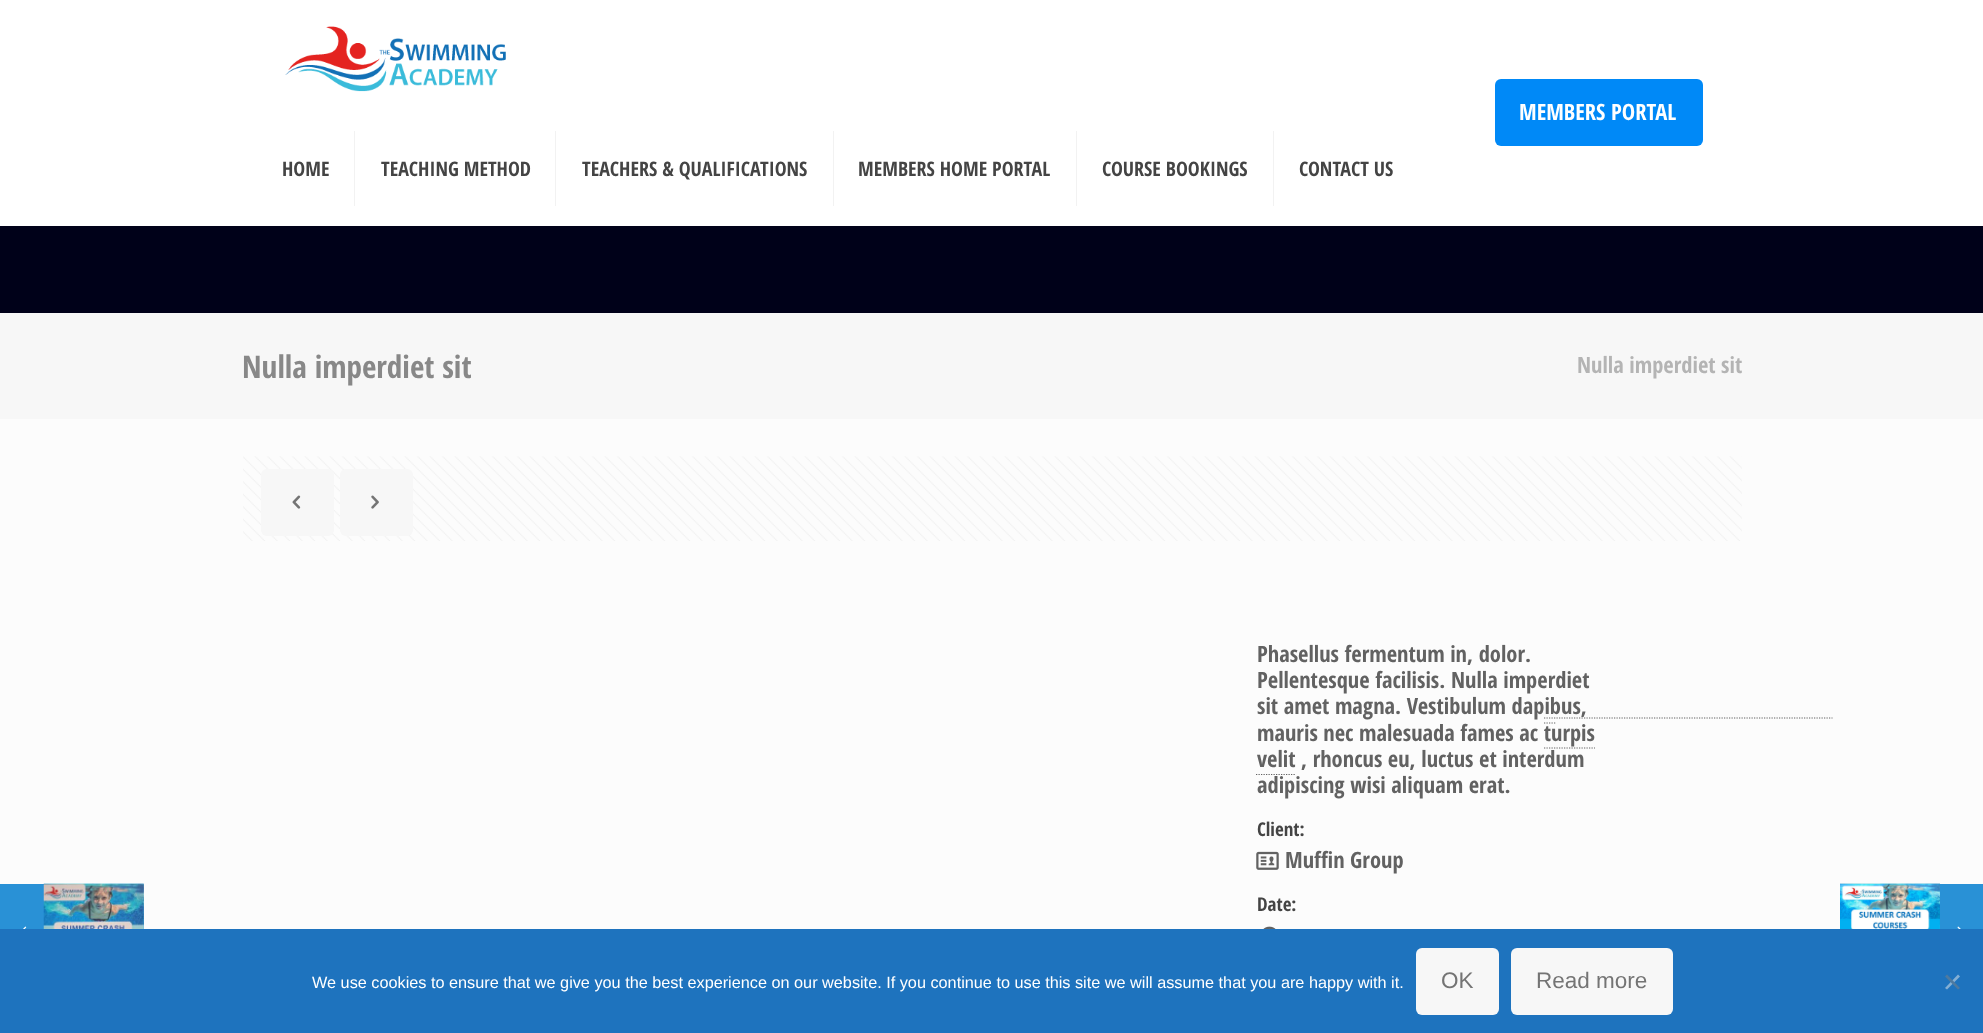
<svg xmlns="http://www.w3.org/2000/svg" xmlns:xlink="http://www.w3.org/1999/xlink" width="1983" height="1033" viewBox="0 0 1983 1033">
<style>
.cls-1{font:bold 22.5px Open Sans Condensed;fill:#ffffff}
.cls-2{font:bold 20px Open Sans Condensed;fill:#444444}
.cls-3{font:bold 31.25px Open Sans Condensed;fill:#888888}
.cls-4{font:bold 22.5px Open Sans Condensed;fill:#b4b4b4}
.cls-5{font:bold 22.5px Open Sans Condensed;fill:#626262}
.cls-6{font:bold 19px Open Sans Condensed;fill:#444444}
.cls-7{font:16.25px Liberation Sans;fill:#ffffff}
.cls-8{font:22.5px Liberation Sans;fill:#747474}
</style>
<rect width="100%" height="100%" fill="#fcfcfc"/>
<image xlink:href="image8.png" x="43" y="883" width="101" height="46"/>
<rect fill="#2991d6" x="0" y="884" width="44" height="45"/>
<image xlink:href="image0.png" x="23" y="926" width="4" height="3"/>
<image xlink:href="image1.png" x="43" y="883" width="101" height="46"/>
<rect fill="#000119" x="0" y="226" width="1983" height="87"/>
<rect fill="#ffffff" x="0" y="0" width="1983" height="226"/>
<rect fill="#0089f7" x="1495" y="79" width="208" height="67" rx="6"/>
<image xlink:href="image2.png" x="285" y="26" width="221" height="66"/>
<rect fill="#f2f2f2" x="354" y="131" width="1" height="75"/>
<rect fill="#f2f2f2" x="555" y="131" width="1" height="75"/>
<rect fill="#f2f2f2" x="833" y="131" width="1" height="75"/>
<rect fill="#f2f2f2" x="1076" y="131" width="1" height="75"/>
<rect fill="#f2f2f2" x="1273" y="131" width="1" height="75"/>
<rect fill="#f7f7f7" x="0" y="313" width="1983" height="106"/>
<image xlink:href="image3.png" x="243" y="456" width="1499" height="85"/>
<rect fill="#f7f7f7" x="261" y="469" width="73" height="67" rx="6"/>
<image xlink:href="image4.png" x="292" y="495" width="9" height="14"/>
<rect fill="#f7f7f7" x="340" y="469" width="73" height="67" rx="6"/>
<image xlink:href="image5.png" x="371" y="495" width="8" height="14"/>
<path fill="none" stroke="#626262" stroke-width="1.2" stroke-dasharray="1.25 1.25" d="M1544 718H1832.5"/>
<path fill="none" stroke="#626262" stroke-width="1.2" stroke-dasharray="1.25 1.25" d="M1544 748H1595"/>
<path fill="none" stroke="#626262" stroke-width="1.2" stroke-dasharray="1.25 1.25" d="M1256 774.5H1295"/>
<path fill="none" stroke="#626262" stroke-width="1.2" stroke-dasharray="1.25 1.25" d="M1544 723H1556"/>
<image xlink:href="image6.png" x="1256" y="851" width="23" height="19"/>
<image xlink:href="image7.png" x="1263" y="926" width="13" height="3"/>
<image xlink:href="image9.png" x="1840" y="883" width="100" height="46"/>
<image xlink:href="image10.png" x="1840" y="883" width="100" height="46"/>
<rect fill="#2991d6" x="1940" y="884" width="43" height="45"/>
<image xlink:href="image11.png" x="1957" y="926" width="4" height="3"/>
<rect fill="#1e73be" x="0" y="929" width="1983" height="104"/>
<rect fill="#f7f7f7" x="1416" y="948" width="83" height="67" rx="6"/>
<rect fill="#f7f7f7" x="1511" y="948" width="162" height="67" rx="6"/>
<path fill="#84afd4" d="M1958 974.5L1960 976.5L1947 989.5L1945 988Z"/>
<path fill="#4f7a9f" d="M1945 976.5L1947 974.5L1960 988L1958 989.5Z"/>
<text class="cls-1" x="1519" y="120">MEMBERS PORTAL</text>
<text class="cls-2" x="282" y="176">HOME</text>
<text class="cls-2" x="381" y="176">TEACHING METHOD</text>
<text class="cls-2" x="582" y="176">TEACHERS &amp; QUALIFICATIONS</text>
<text class="cls-2" x="858" y="176">MEMBERS HOME PORTAL</text>
<text class="cls-2" x="1102" y="176">COURSE BOOKINGS</text>
<text class="cls-2" x="1299" y="176">CONTACT US</text>
<text class="cls-3" x="242" y="378">Nulla imperdiet sit</text>
<text class="cls-4" x="1577" y="373">Nulla imperdiet sit</text>
<text class="cls-5"><tspan x="1257" y="662">Phasellus fermentum in, dolor.</tspan><tspan x="1257" y="688">Pellentesque facilisis. Nulla imperdiet</tspan><tspan x="1257" y="714">sit amet magna. Vestibulum dapibus,</tspan><tspan x="1257" y="741">mauris nec malesuada fames ac turpis</tspan><tspan x="1257" y="767">velit</tspan></text>
<text class="cls-5" x="1301" y="767">, rhoncus eu, luctus et interdum</text>
<text class="cls-5" x="1257" y="793">adipiscing wisi aliquam erat.</text>
<text class="cls-6" x="1257" y="836">Client:</text>
<text class="cls-5" x="1285" y="868">Muffin Group</text>
<text class="cls-6" x="1257" y="911">Date:</text>
<text class="cls-7" x="312" y="988">We use cookies to ensure that we give you the best experience on our website. If you continue to use this site we will assume that you are happy with it.</text>
<text class="cls-8" x="1441" y="988">OK</text>
<text class="cls-8" x="1536" y="988">Read more</text>
</svg>
